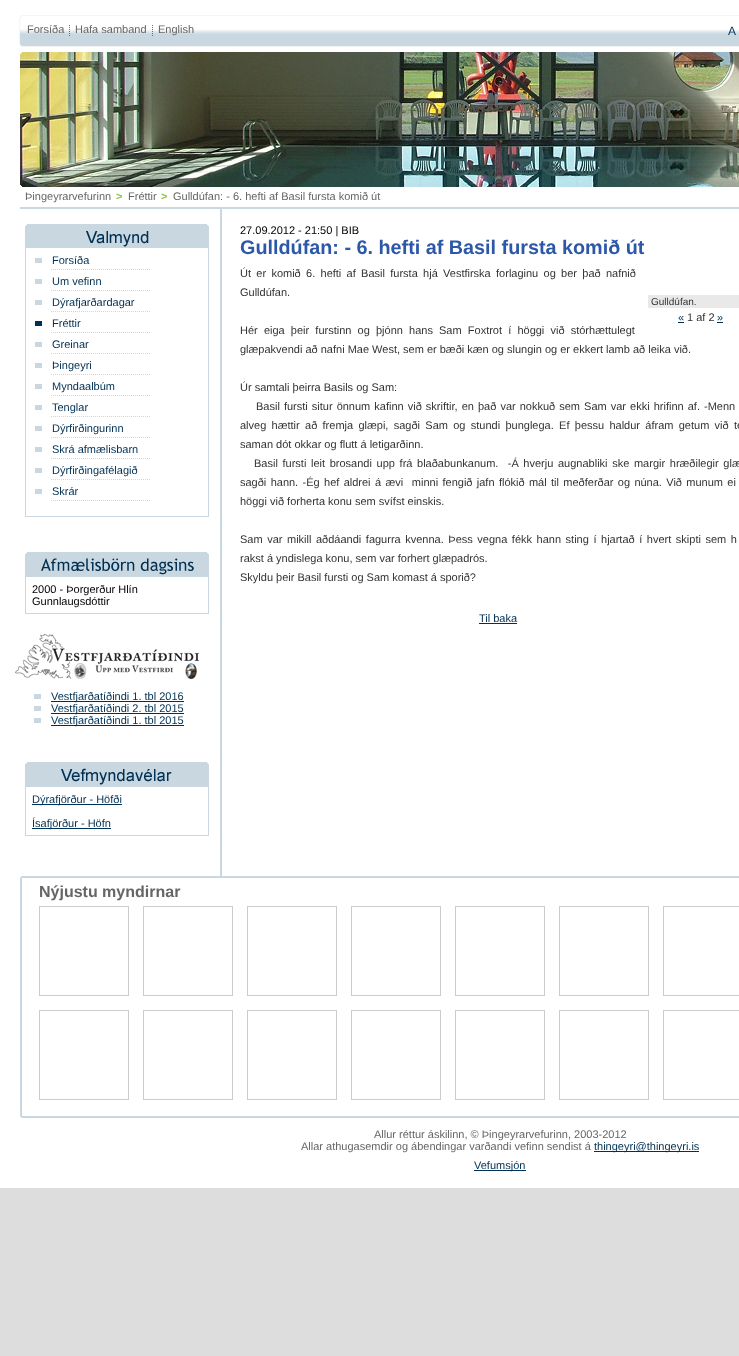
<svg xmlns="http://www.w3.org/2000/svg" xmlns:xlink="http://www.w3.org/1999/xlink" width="739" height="1356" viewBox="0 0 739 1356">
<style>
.cls-1{font:11px Liberation Sans;fill:#666666}
.cls-2{font:12px Liberation Sans;fill:#003053}
.cls-3{font:bold 11px Liberation Sans;fill:#8cc63f}
.cls-4{font:11px Liberation Sans;fill:#003053}
.cls-5{font:11px Liberation Sans;fill:#000000}
.cls-6{font:bold 19.8px Liberation Sans;fill:#2c58a7}
.cls-7{font:11px Liberation Sans;fill:#333333}
.cls-8{font:10px Liberation Sans;fill:#333333}
.cls-9{font:bold 16px Liberation Sans;fill:#666666}
</style>
<rect width="100%" height="100%" fill="#dddddd"/>
<rect fill="#ffffff" x="0" y="0" width="739" height="1188"/>
<rect fill="#c9d8e0" x="220" y="209" width="2" height="667"/>
<image xlink:href="image0.png" x="19" y="15" width="3" height="32"/>
<image xlink:href="image1.png" x="22" y="16" width="717" height="30"/>
<rect fill="#f4f4f4" x="22" y="15" width="717" height="1"/>
<rect fill="#f4f4f4" x="22" y="46" width="717" height="1"/>
<image xlink:href="image2.png" x="69" y="25" width="1" height="11"/>
<image xlink:href="image2.png" x="152" y="25" width="1" height="11"/>
<image xlink:href="image3.png" x="20" y="52" width="719" height="135"/>
<rect fill="#c9d8e0" x="20" y="207" width="719" height="2"/>
<image xlink:href="image4.png" x="25" y="224" width="184" height="24"/>
<rect fill="#c9d8e0" x="208" y="248" width="1" height="269"/>
<rect fill="#c9d8e0" x="25" y="516" width="184" height="1"/>
<rect fill="#c9d8e0" x="25" y="248" width="1" height="269"/>
<image xlink:href="image5.png" x="51" y="269" width="99" height="1"/>
<rect fill="#c9d8e0" x="35" y="258" width="7" height="5"/>
<image xlink:href="image5.png" x="51" y="290" width="99" height="1"/>
<rect fill="#c9d8e0" x="35" y="279" width="7" height="5"/>
<image xlink:href="image5.png" x="51" y="311" width="99" height="1"/>
<rect fill="#c9d8e0" x="35" y="300" width="7" height="5"/>
<image xlink:href="image5.png" x="51" y="332" width="99" height="1"/>
<rect fill="#003053" x="35" y="321" width="7" height="5"/>
<image xlink:href="image5.png" x="51" y="353" width="99" height="1"/>
<rect fill="#c9d8e0" x="35" y="342" width="7" height="5"/>
<image xlink:href="image5.png" x="51" y="374" width="99" height="1"/>
<rect fill="#c9d8e0" x="35" y="363" width="7" height="5"/>
<image xlink:href="image5.png" x="51" y="395" width="99" height="1"/>
<rect fill="#c9d8e0" x="35" y="384" width="7" height="5"/>
<image xlink:href="image5.png" x="51" y="416" width="99" height="1"/>
<rect fill="#c9d8e0" x="35" y="405" width="7" height="5"/>
<image xlink:href="image5.png" x="51" y="437" width="99" height="1"/>
<rect fill="#c9d8e0" x="35" y="426" width="7" height="5"/>
<image xlink:href="image5.png" x="51" y="458" width="99" height="1"/>
<rect fill="#c9d8e0" x="35" y="447" width="7" height="5"/>
<image xlink:href="image5.png" x="51" y="479" width="99" height="1"/>
<rect fill="#c9d8e0" x="35" y="468" width="7" height="5"/>
<image xlink:href="image5.png" x="51" y="500" width="99" height="1"/>
<rect fill="#c9d8e0" x="35" y="489" width="7" height="5"/>
<image xlink:href="image6.png" x="25" y="552" width="184" height="24"/>
<rect fill="none" stroke="#c9d8e0" x="25.5" y="576.5" width="183" height="37"/>
<image xlink:href="image7.png" x="15" y="634" width="184" height="45"/>
<rect fill="#c9d8e0" x="34" y="694" width="7" height="5"/>
<rect fill="#003053" x="51" y="701" width="133" height="1"/>
<rect fill="#c9d8e0" x="34" y="706" width="7" height="5"/>
<rect fill="#003053" x="51" y="713" width="133" height="1"/>
<rect fill="#c9d8e0" x="34" y="718" width="7" height="5"/>
<rect fill="#003053" x="51" y="725" width="133" height="1"/>
<image xlink:href="image8.png" x="25" y="762" width="184" height="24"/>
<rect fill="none" stroke="#c9d8e0" x="25.5" y="786.5" width="183" height="49"/>
<rect fill="#003053" x="32" y="804" width="90" height="1"/>
<rect fill="#003053" x="32" y="828" width="79" height="1"/>
<rect fill="#e9e9e9" x="648" y="295" width="91" height="13"/>
<rect fill="#003053" x="678" y="322" width="6" height="1"/>
<rect fill="#003053" x="717" y="322" width="6" height="1"/>
<rect fill="#003053" x="479" y="623" width="38" height="1"/>
<image xlink:href="image9.png" x="20" y="876" width="2" height="2"/>
<rect fill="#c9d8e0" x="22" y="876" width="717" height="2"/>
<rect fill="#c9d8e0" x="20" y="878" width="2" height="238"/>
<rect fill="none" stroke="#cccccc" x="39.5" y="906.5" width="89" height="89"/>
<rect fill="none" stroke="#cccccc" x="143.5" y="906.5" width="89" height="89"/>
<rect fill="none" stroke="#cccccc" x="247.5" y="906.5" width="89" height="89"/>
<rect fill="none" stroke="#cccccc" x="351.5" y="906.5" width="89" height="89"/>
<rect fill="none" stroke="#cccccc" x="455.5" y="906.5" width="89" height="89"/>
<rect fill="none" stroke="#cccccc" x="559.5" y="906.5" width="89" height="89"/>
<rect fill="none" stroke="#cccccc" x="663.5" y="906.5" width="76" height="89"/>
<rect fill="none" stroke="#cccccc" x="39.5" y="1010.5" width="89" height="89"/>
<rect fill="none" stroke="#cccccc" x="143.5" y="1010.5" width="89" height="89"/>
<rect fill="none" stroke="#cccccc" x="247.5" y="1010.5" width="89" height="89"/>
<rect fill="none" stroke="#cccccc" x="351.5" y="1010.5" width="89" height="89"/>
<rect fill="none" stroke="#cccccc" x="455.5" y="1010.5" width="89" height="89"/>
<rect fill="none" stroke="#cccccc" x="559.5" y="1010.5" width="89" height="89"/>
<rect fill="none" stroke="#cccccc" x="663.5" y="1010.5" width="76" height="89"/>
<image xlink:href="image10.png" x="20" y="1116" width="2" height="2"/>
<rect fill="#c9d8e0" x="22" y="1116" width="717" height="2"/>
<rect fill="#003053" x="594" y="1151" width="105" height="1"/>
<rect fill="#003053" x="474" y="1170" width="52" height="1"/>
<text class="cls-1" x="27" y="33">Forsíða</text>
<text class="cls-1" x="75" y="33">Hafa samband</text>
<text class="cls-1" x="158" y="33">English</text>
<text class="cls-2" x="728" y="35">A</text>
<text class="cls-1" x="25" y="200">Þingeyrarvefurinn</text>
<text class="cls-3" x="116" y="200">&gt;</text>
<text class="cls-1" x="128" y="200">Fréttir</text>
<text class="cls-3" x="161" y="200">&gt;</text>
<text class="cls-1" x="173" y="200">Gulldúfan: - 6. hefti af Basil fursta komið út</text>
<text class="cls-4"><tspan x="52" y="264">Forsíða</tspan><tspan x="52" y="285">Um vefinn</tspan><tspan x="52" y="306">Dýrafjarðardagar</tspan><tspan x="52" y="327">Fréttir</tspan><tspan x="52" y="348">Greinar</tspan><tspan x="52" y="369">Þingeyri</tspan><tspan x="52" y="390">Myndaalbúm</tspan><tspan x="52" y="411">Tenglar</tspan><tspan x="52" y="432">Dýrfirðingurinn</tspan><tspan x="52" y="453">Skrá afmælisbarn</tspan><tspan x="52" y="474">Dýrfirðingafélagið</tspan><tspan x="52" y="495">Skrár</tspan></text>
<text class="cls-5"><tspan x="32" y="593">2000 - Þorgerður Hlín</tspan><tspan x="32" y="605">Gunnlaugsdóttir</tspan></text>
<text class="cls-4"><tspan x="51" y="700">Vestfjarðatíðindi 1. tbl 2016</tspan><tspan x="51" y="712">Vestfjarðatíðindi 2. tbl 2015</tspan><tspan x="51" y="724">Vestfjarðatíðindi 1. tbl 2015</tspan></text>
<text class="cls-4" x="32" y="803">Dýrafjörður - Höfði</text>
<text class="cls-4" x="32" y="827">Ísafjörður - Höfn</text>
<text class="cls-5" x="240" y="234">27.09.2012 - 21:50 | BIB</text>
<text class="cls-6" x="240" y="254">Gulldúfan: - 6. hefti af Basil fursta komið út</text>
<text class="cls-7"><tspan x="240" y="277" word-spacing="2.25">Út er komið 6. hefti af Basil fursta hjá Vestfirska forlaginu og ber það nafnið</tspan><tspan x="240" y="296">Gulldúfan.</tspan></text>
<text class="cls-8" x="651" y="305">Gulldúfan.</text>
<text class="cls-4" x="678" y="321">«</text>
<text class="cls-7" x="687" y="321">1 af 2</text>
<text class="cls-4" x="717" y="321">»</text>
<text class="cls-7"><tspan x="240" y="334" word-spacing="3.1">Hér eiga þeir furstinn og þjónn hans Sam Foxtrot í höggi við stórhættulegt</tspan><tspan x="240" y="353">glæpakvendi að nafni Mae West, sem er bæði kæn og slungin og er ekkert lamb að leika við.</tspan></text>
<text class="cls-7" x="240" y="391">Úr samtali þeirra Basils og Sam:</text>
<text class="cls-7" x="256" y="410" word-spacing="1">Basil fursti situr önnum kafinn við skriftir, en það var nokkuð sem Sam var ekki hrifinn af. -Menn</text>
<text class="cls-7"><tspan x="240" y="429" word-spacing="2.25">alveg hættir að fremja glæpi, sagði Sam og stundi þunglega. Ef þessu haldur áfram getum við te</tspan><tspan x="240" y="448">saman dót okkar og flutt á letigarðinn.</tspan></text>
<text class="cls-7" xml:space="preserve" x="254" y="467" word-spacing="1.6">Basil fursti leit brosandi upp frá blaðabunkanum.  -Á hverju augnabliki ske margir hræðilegir glæ</text>
<text class="cls-7" xml:space="preserve"><tspan x="240" y="486" word-spacing="1.3">sagði hann. -Ég hef aldrei á ævi  minni fengið jafn flókið mál til meðferðar og núna. Við munum ei</tspan><tspan x="240" y="505">höggi við forherta konu sem svífst einskis.</tspan></text>
<text class="cls-7"><tspan x="240" y="543" word-spacing="1.5">Sam var mikill aðdáandi fagurra kvenna. Þess vegna fékk hann sting í hjartað í hvert skipti sem h</tspan><tspan x="240" y="562">rakst á yndislega konu, sem var forhert glæpadrós.</tspan><tspan x="240" y="581">Skyldu þeir Basil fursti og Sam komast á sporið?</tspan></text>
<text class="cls-4" x="479" y="622">Til baka</text>
<text class="cls-9" x="39" y="897">Nýjustu myndirnar</text>
<text class="cls-1" x="374" y="1138">Allur réttur áskilinn, © Þingeyrarvefurinn, 2003-2012</text>
<text class="cls-1" x="301" y="1150">Allar athugasemdir og ábendingar varðandi vefinn sendist á</text>
<text class="cls-4" x="594" y="1150">thingeyri@thingeyri.is</text>
<text class="cls-4" x="474" y="1169">Vefumsjón</text>
</svg>
